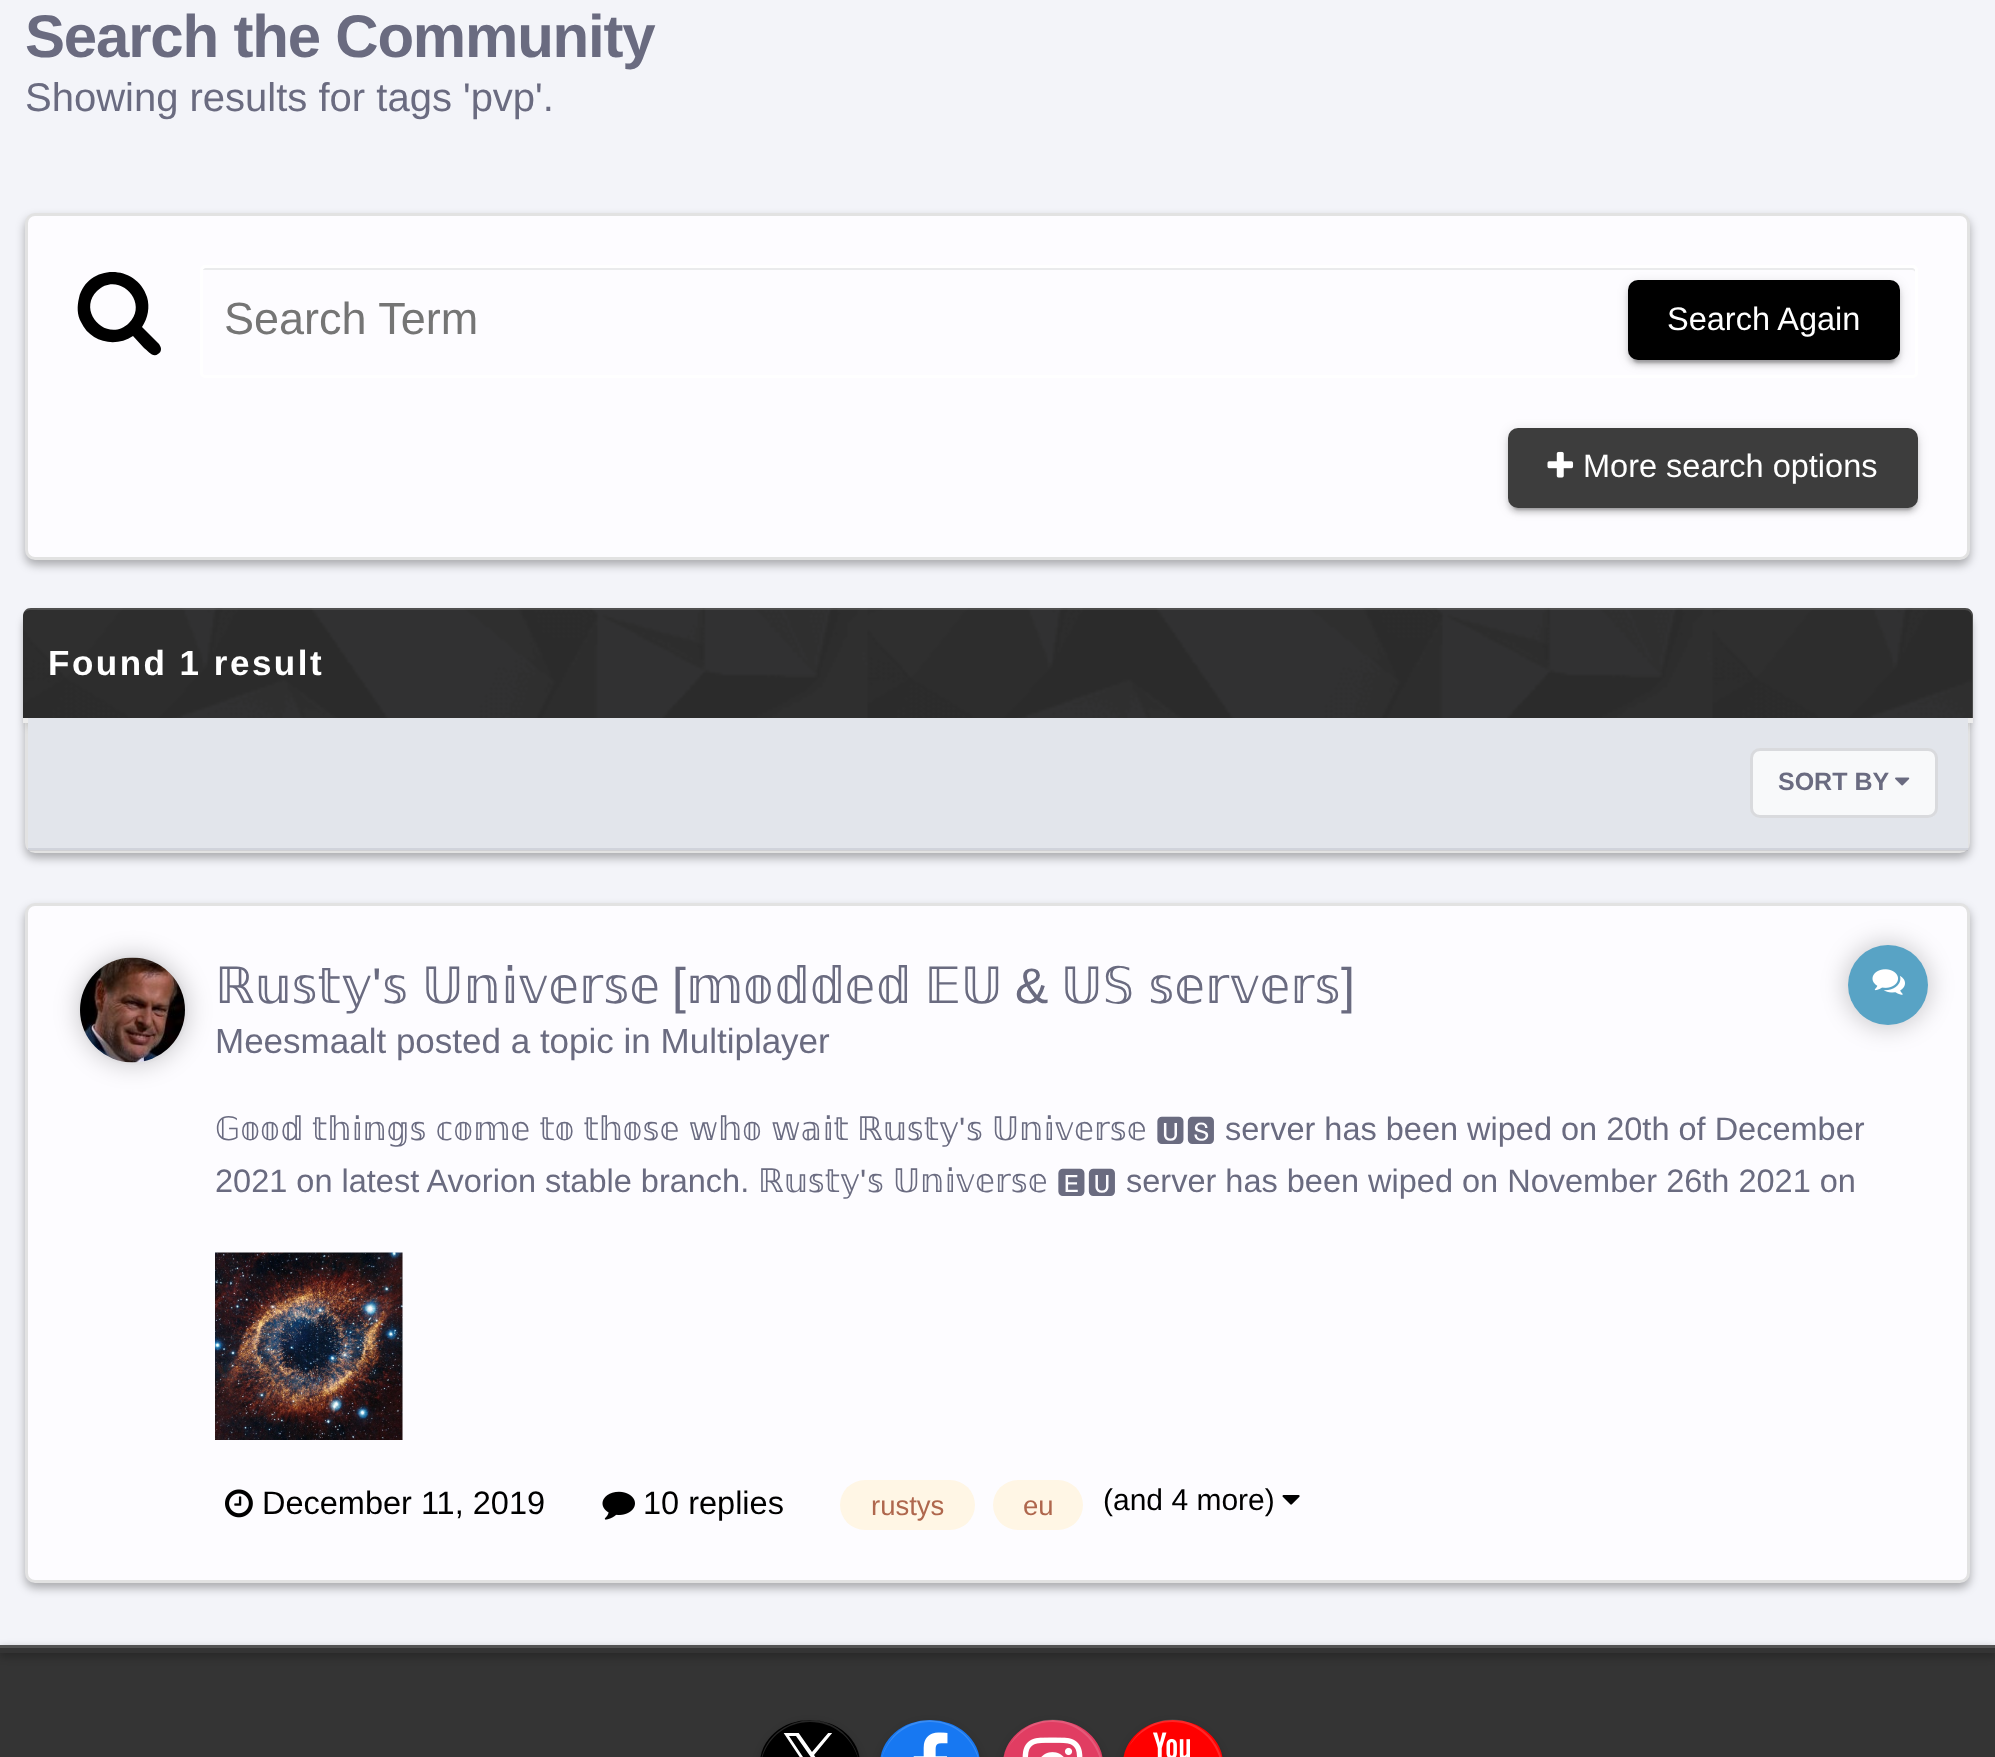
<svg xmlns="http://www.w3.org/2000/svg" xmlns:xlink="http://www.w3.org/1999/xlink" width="1995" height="1757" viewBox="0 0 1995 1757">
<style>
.cls-1{font:bold 60px Liberation Sans;letter-spacing:-1.2px;fill:#6a6b80}
.cls-2{font:40px Liberation Sans;fill:#6a6b80}
.cls-3{font:45px Liberation Sans;fill:#757575}
.cls-4{font:32.5px Liberation Sans;fill:#ffffff}
.cls-5{font:bold 35px Liberation Sans;letter-spacing:2.5px;fill:#ffffff}
.cls-6{font:bold 25px Liberation Sans;fill:#6a6b80}
.cls-7{font:50px DejaVu Sans;fill:#6a6b80}
.cls-8{font:50px Liberation Sans;fill:#6a6b80}
.cls-9{font:35px Liberation Sans;fill:#6a6b80}
.cls-10{font:32.5px DejaVu Sans;fill:#6a6b80}
.cls-11{font:32.5px Liberation Sans;fill:#6a6b80}
.cls-12{font:32.5px FreeSans;fill:#6a6b80}
.cls-13{font:32.5px Liberation Sans;fill:#000000}
.cls-14{font:27.5px Liberation Sans;fill:#af674d}
.cls-15{font:30px Liberation Sans;fill:#000000}
</style>
<defs>
<clipPath id="clip1"><rect x="783" y="1733" width="52" height="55"/></clipPath>
</defs>
<rect width="100%" height="100%" fill="#f3f4f9"/>
<rect fill="#000000" fill-opacity="0.3" filter="blur(5px)" x="25" y="218" width="1945" height="347" rx="10"/>
<rect fill="#fdfcff" stroke="#e2e2e2" stroke-width="3" x="26.5" y="214.5" width="1942" height="344" rx="8.5"/>
<path fill="#000000" d="M129 323C150 302 118 270 97 291C76 312 108 344 129 323ZM161 349C161 351 160 353 158 354C153 358 148 351 144 348L133 336C115 348 90 342 81 322C77 315 77 306 79 298C87 264 136 263 147 297C150 307 148 318 142 327L159 344C160 346 161 347 161 349Z"/>
<path fill="#eaebec" d="M205 270H1912C1914 270 1915 271 1915 272V270C1915 269 1914 268 1912 268H206C204 268 203 269 203 270Z"/>
<rect fill="none" stroke="#ffffff" stroke-width="3" x="201.5" y="266.5" width="1715" height="110" rx="3.5"/>
<rect fill="#000000" fill-opacity="0.2" filter="blur(1px)" x="1633" y="293" width="262" height="70" rx="5"/>
<rect fill="#000000" fill-opacity="0.12" filter="blur(6px)" x="1628" y="283" width="272" height="80" rx="10"/>
<rect fill="#000000" fill-opacity="0.14" filter="blur(2.5px)" x="1628" y="285" width="272" height="80" rx="10"/>
<rect fill="#000000" x="1628" y="280" width="272" height="80" rx="10"/>
<rect fill="#000000" fill-opacity="0.2" filter="blur(1px)" x="1513" y="440" width="400" height="70" rx="5"/>
<rect fill="#000000" fill-opacity="0.12" filter="blur(6px)" x="1508" y="430" width="410" height="80" rx="10"/>
<rect fill="#000000" fill-opacity="0.14" filter="blur(2.5px)" x="1508" y="433" width="410" height="80" rx="10"/>
<rect fill="#3d3d3d" x="1508" y="428" width="410" height="80" rx="10"/>
<image xlink:href="image0.png" x="1547" y="451" width="27" height="27"/>
<rect fill="#000000" fill-opacity="0.3" filter="blur(5px)" x="25" y="615" width="1945" height="243" rx="10"/>
<rect fill="none" stroke="#e2e2e2" stroke-width="3" x="26.5" y="611.5" width="1942" height="240" rx="8.5"/>
<rect fill="#000000" fill-opacity="0.3" filter="blur(5px)" x="28" y="620" width="1940" height="105" rx="2.5"/>
<path fill="#2c2c2c" d="M31 608H1965C1969.5 608 1973 611.5 1973 616V718H23V616C23 611.5 26.5 608 31 608Z"/>
<image xlink:href="image1.png" x="23" y="608" width="1949" height="110"/>
<path fill="#ffffff" fill-opacity="0.15" d="M30 610H1965C1969 610 1972 613 1972 618V718H1973V616C1973 612 1969 608 1965 608H31C28 608 25 610 23 613C25 611 28 610 30 610Z"/>
<rect fill="#ededed" x="23" y="718" width="1950" height="5"/>
<rect fill="#e2e5eb" x="28" y="718" width="1940" height="132"/>
<rect fill="#6a6b80" fill-opacity="0.15" x="28" y="848" width="1940" height="3"/>
<rect fill="#f8f9fa" x="1750" y="748" width="188" height="70" rx="10"/>
<rect fill="none" stroke="#000000" stroke-opacity="0.07" stroke-width="3" x="1751.5" y="749.5" width="185" height="67" rx="8.5"/>
<image xlink:href="image2.png" x="1895" y="777" width="15" height="9"/>
<rect fill="none" stroke="#6a6b80" stroke-opacity="0.1" stroke-width="3" x="1751.5" y="749.5" width="185" height="67" rx="8.5"/>
<rect fill="#000000" fill-opacity="0.3" filter="blur(5px)" x="25" y="908" width="1945" height="680" rx="10"/>
<rect fill="#fdfcff" stroke="#e2e2e2" stroke-width="3" x="26.5" y="904.5" width="1942" height="677" rx="8.5"/>
<circle fill="none" stroke="#faf9fc" stroke-width="3" cx="133" cy="1010" r="53.5"/>
<rect fill="#000000" fill-opacity="0.2" filter="blur(12.5px)" x="78" y="955" width="110" height="110" rx="55"/>
<image xlink:href="image3.png" x="80" y="957" width="105" height="106"/>
<rect fill="#000000" fill-opacity="0.2" filter="blur(12.5px)" x="1845" y="943" width="85" height="85" rx="42.5"/>
<circle fill="#58a3c5" cx="1888" cy="985" r="40"/>
<image xlink:href="image4.png" x="1872" y="969" width="33" height="26"/>
<rect fill="#f3f4f9" x="402" y="1253" width="1" height="187"/>
<image xlink:href="image5.png" x="215" y="1252" width="188" height="188"/>
<image xlink:href="image6.png" x="225" y="1489" width="28" height="29"/>
<image xlink:href="image7.png" x="602" y="1491" width="33" height="29"/>
<rect fill="#fff6e5" x="840" y="1480" width="135" height="50" rx="25"/>
<rect fill="#fff6e5" x="993" y="1480" width="90" height="50" rx="25"/>
<image xlink:href="image8.png" x="1282" y="1495" width="18" height="10"/>
<rect fill="#343434" x="0" y="1653" width="1995" height="104"/>
<rect fill="#000000" fill-opacity="0.3" filter="blur(4px)" x="0" y="1648" width="1995" height="8"/>
<rect fill="#343434" x="0" y="1648" width="1995" height="5"/>
<rect fill="#525252" x="0" y="1645" width="1995" height="3"/>
<rect fill="#000000" fill-opacity="0.3" filter="blur(5px)" x="760" y="1725" width="100" height="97" rx="50"/>
<rect fill="#000000" x="760" y="1720" width="100" height="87" rx="50"/>
<path fill="#ffffff" fill-opacity="0.15" d="M810 1722C838 1722 859 1744 860 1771C860 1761 857 1751 851 1742C824 1701 759 1722 760 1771C761 1744 782 1722 810 1722Z"/>
<g clip-path="url(#clip1)">
<path fill="#ffffff" d="M814 1755L833 1732H829L812 1752L798 1732H783L803 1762L783 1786H787L805 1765L819 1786H835ZM807 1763L789 1736H796L829 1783H822Z"/>
</g>
<rect fill="#000000" fill-opacity="0.3" filter="blur(5px)" x="880" y="1725" width="100" height="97" rx="50"/>
<rect fill="#1778f2" x="880" y="1720" width="100" height="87" rx="50"/>
<path fill="#ffffff" fill-opacity="0.15" d="M930 1722C958 1722 979 1744 980 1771C981 1722 916 1701 889 1742C883 1751 880 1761 880 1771C881 1744 902 1722 930 1722Z"/>
<image xlink:href="image9.png" x="913" y="1732" width="35" height="25"/>
<rect fill="#000000" fill-opacity="0.3" filter="blur(5px)" x="1003" y="1725" width="100" height="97" rx="50"/>
<rect fill="#e13d62" x="1003" y="1720" width="100" height="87" rx="50"/>
<path fill="#ffffff" fill-opacity="0.15" d="M1052 1722C1088 1722 1111 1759 1098 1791C1120 1746 1066 1699 1024 1729C1016 1735 1010 1743 1006 1752C1014 1735 1032 1722 1052 1722Z"/>
<image xlink:href="image10.png" x="1022" y="1737" width="61" height="20"/>
<rect fill="#000000" fill-opacity="0.3" filter="blur(5px)" x="1123" y="1725" width="100" height="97" rx="50"/>
<rect fill="#ff0000" x="1123" y="1720" width="100" height="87" rx="50"/>
<path fill="#ffffff" fill-opacity="0.15" d="M1172 1722C1208 1722 1231 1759 1218 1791C1240 1746 1186 1699 1144 1729C1136 1735 1130 1743 1126 1752C1134 1735 1152 1722 1172 1722Z"/>
<image xlink:href="image11.png" x="1153" y="1732" width="37" height="25"/>
<text class="cls-1" x="25" y="57">Search the Community</text>
<text class="cls-2" x="25" y="111">Showing results for tags 'pvp'.</text>
<text class="cls-3" x="224" y="334">Search Term</text>
<text class="cls-4" x="1667" y="330">Search Again</text>
<text class="cls-4" x="1583" y="477">More search options</text>
<text class="cls-5" x="48" y="675">Found 1 result</text>
<text class="cls-6" x="1778" y="790">SORT BY</text>
<text class="cls-7" x="215" y="1003">ℝ𝕦𝕤𝕥𝕪</text>
<text class="cls-8" x="372" y="1003">'</text>
<text class="cls-7" x="382" y="1003" word-spacing="-2">𝕤 𝕌𝕟𝕚𝕧𝕖𝕣𝕤𝕖</text>
<text class="cls-8" x="672" y="1003">[</text>
<text class="cls-7" x="686" y="1003" word-spacing="-2">𝕞𝕠𝕕𝕕𝕖𝕕 𝔼𝕌</text>
<text class="cls-8" x="1015" y="1003">&amp;</text>
<text class="cls-7" x="1061" y="1003" word-spacing="-2">𝕌𝕊 𝕤𝕖𝕣𝕧𝕖𝕣𝕤</text>
<text class="cls-8" x="1341" y="1003">]</text>
<text class="cls-9" x="215" y="1053">Meesmaalt posted a topic in Multiplayer</text>
<text class="cls-10" x="215" y="1140" word-spacing="-1.25">𝔾𝕠𝕠𝕕 𝕥𝕙𝕚𝕟𝕘𝕤 𝕔𝕠𝕞𝕖 𝕥𝕠 𝕥𝕙𝕠𝕤𝕖 𝕨𝕙𝕠 𝕨𝕒𝕚𝕥</text>
<text class="cls-10" x="857" y="1140">ℝ𝕦𝕤𝕥𝕪</text>
<text class="cls-11" x="959" y="1140">'</text>
<text class="cls-10" x="966" y="1140">𝕤</text>
<text class="cls-10" x="992" y="1140">𝕌𝕟𝕚𝕧𝕖𝕣𝕤𝕖</text>
<text class="cls-12" x="1155" y="1140">🆄🆂</text>
<text class="cls-11" x="1225" y="1140">server has been wiped on 20th of December</text>
<text class="cls-11" x="215" y="1192">2021 on latest Avorion stable branch.</text>
<text class="cls-10" x="758" y="1192">ℝ𝕦𝕤𝕥𝕪</text>
<text class="cls-11" x="860" y="1192">'</text>
<text class="cls-10" x="867" y="1192">𝕤</text>
<text class="cls-10" x="893" y="1192">𝕌𝕟𝕚𝕧𝕖𝕣𝕤𝕖</text>
<text class="cls-12" x="1056" y="1192">🅴🆄</text>
<text class="cls-11" x="1126" y="1192">server has been wiped on November 26th 2021 on</text>
<text class="cls-13" x="262" y="1514">December 11, 2019</text>
<text class="cls-13" x="643" y="1514">10 replies</text>
<text class="cls-14" x="871" y="1515">rustys</text>
<text class="cls-14" x="1023" y="1515">eu</text>
<text class="cls-15" x="1103" y="1510">(and 4 more)</text>
</svg>
